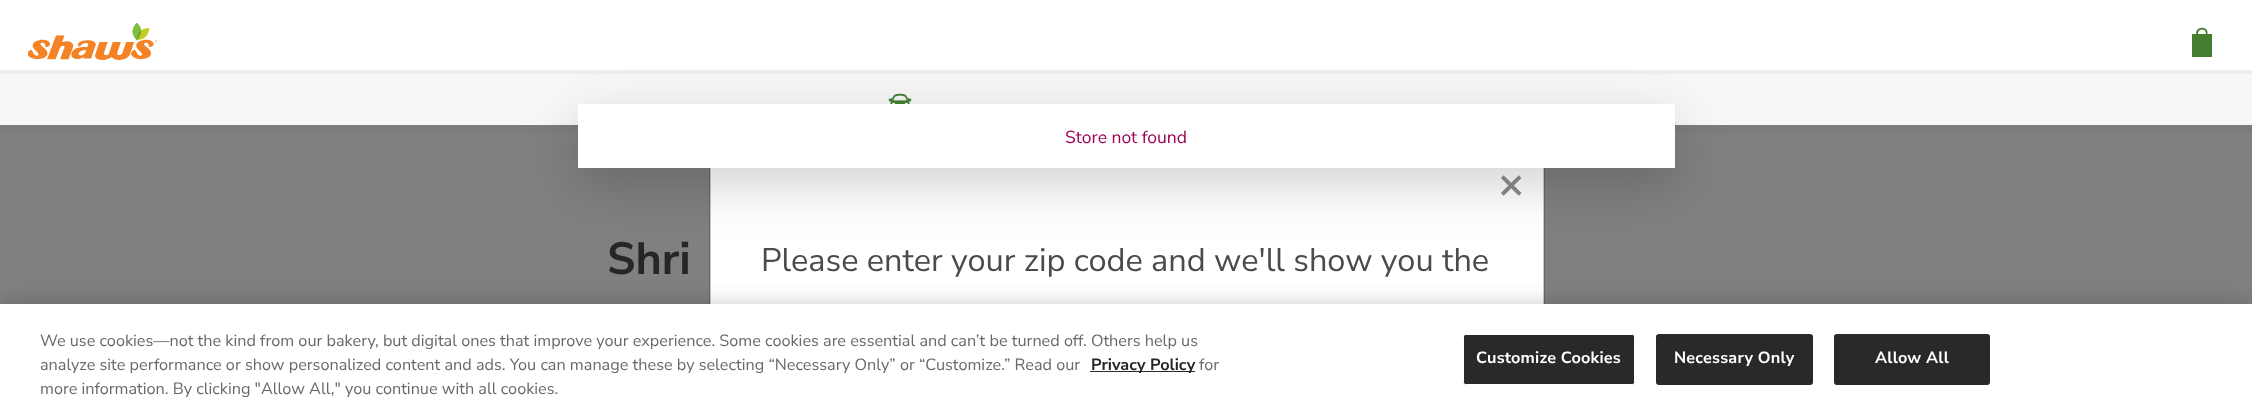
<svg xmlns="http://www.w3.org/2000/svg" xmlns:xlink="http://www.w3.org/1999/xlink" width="2252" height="414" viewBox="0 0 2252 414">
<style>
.cls-1{font:17.5px Nunito Sans;fill:#99004d}
.cls-2{font:bold 45px Nunito Sans;fill:#262626}
.cls-3{font:bold 44px Nunito Sans;fill:#808080}
.cls-4{font:32.5px Nunito Sans;fill:#4b4b4b}
.cls-5{font:16.25px Nunito Sans;fill:#696969}
.cls-6{font:bold 16.25px Nunito Sans;fill:#262626}
.cls-7{font:bold 16.25px Nunito Sans;letter-spacing:0.2px;fill:#ffffff}
</style>
<rect width="100%" height="100%" fill="#ffffff"/>
<rect fill="#808080" x="0" y="133" width="2252" height="171"/>
<rect fill="#f7f7f7" x="0" y="74" width="2252" height="51"/>
<rect fill="#7c7c7c" x="0" y="125" width="2252" height="8"/>
<rect fill="#eeeeee" x="0" y="70" width="2252" height="4"/>
<image xlink:href="image1.png" x="888" y="93" width="24" height="11"/>
<rect fill="#ffffff" x="710" y="168" width="834" height="136"/>
<rect fill="none" stroke="#000000" stroke-opacity="0.2" x="709.5" y="150.5" width="835" height="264"/>
<rect fill="none" stroke="#000000" stroke-opacity="0.2" x="710.5" y="151.5" width="833" height="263"/>
<rect fill="#000000" fill-opacity="0.18" filter="blur(26px)" x="578" y="121" width="1097" height="64"/>
<rect fill="#ffffff" x="578" y="104" width="1097" height="64"/>
<image xlink:href="image0.png" x="28" y="23" width="130" height="37"/>
<rect fill="#437f2f" x="2192" y="34" width="20" height="23"/>
<path fill="#437f2f" fill-rule="evenodd" d="M2207.5 33.5C2208.5 27.5 2199.5 25.5 2196.5 31C2196 32 2196 33.5 2196.5 35C2197.5 42.5 2208.5 40.5 2207.5 33.5ZM2198 33.5C2198 28 2206 28 2206 33.5C2206 40 2198 39.5 2198 33.5Z"/>
<rect fill="#000000" fill-opacity="0.2" filter="blur(11px)" x="0" y="304" width="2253" height="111"/>
<rect fill="#ffffff" x="0" y="304" width="2252" height="110"/>
<rect fill="#2a2928" x="1090" y="371" width="105" height="1"/>
<rect fill="#2a2928" stroke="#ffffff" x="1463.5" y="334.5" width="171" height="50" rx="2"/>
<rect fill="#2a2928" stroke="#2a2928" x="1656.5" y="334.5" width="156" height="50" rx="2"/>
<rect fill="#2a2928" stroke="#2a2928" x="1834.5" y="334.5" width="155" height="50" rx="2"/>
<text class="cls-1" x="1065" y="143">Store not found</text>
<text class="cls-2" x="607" y="274">Shri</text>
<text class="cls-3" x="1498" y="198">×</text>
<text class="cls-4" x="761" y="271">Please enter your zip code and we'll show you the</text>
<text class="cls-5"><tspan x="40" y="346">We use cookies—not the kind from our bakery, but digital ones that improve your experience. Some cookies are essential and can’t be turned off. Others help us</tspan><tspan x="40" y="370">analyze site performance or show personalized content and ads. You can manage these by selecting “Necessary Only” or “Customize.” Read our</tspan></text>
<text class="cls-6" x="1091" y="370">Privacy Policy</text>
<text class="cls-5" x="1199" y="370">for</text>
<text class="cls-5" x="40" y="394">more information. By clicking "Allow All," you continue with all cookies.</text>
<text class="cls-7" x="1476" y="363">Customize Cookies</text>
<text class="cls-7" x="1674" y="363">Necessary Only</text>
<text class="cls-7" x="1875" y="363">Allow All</text>
</svg>
